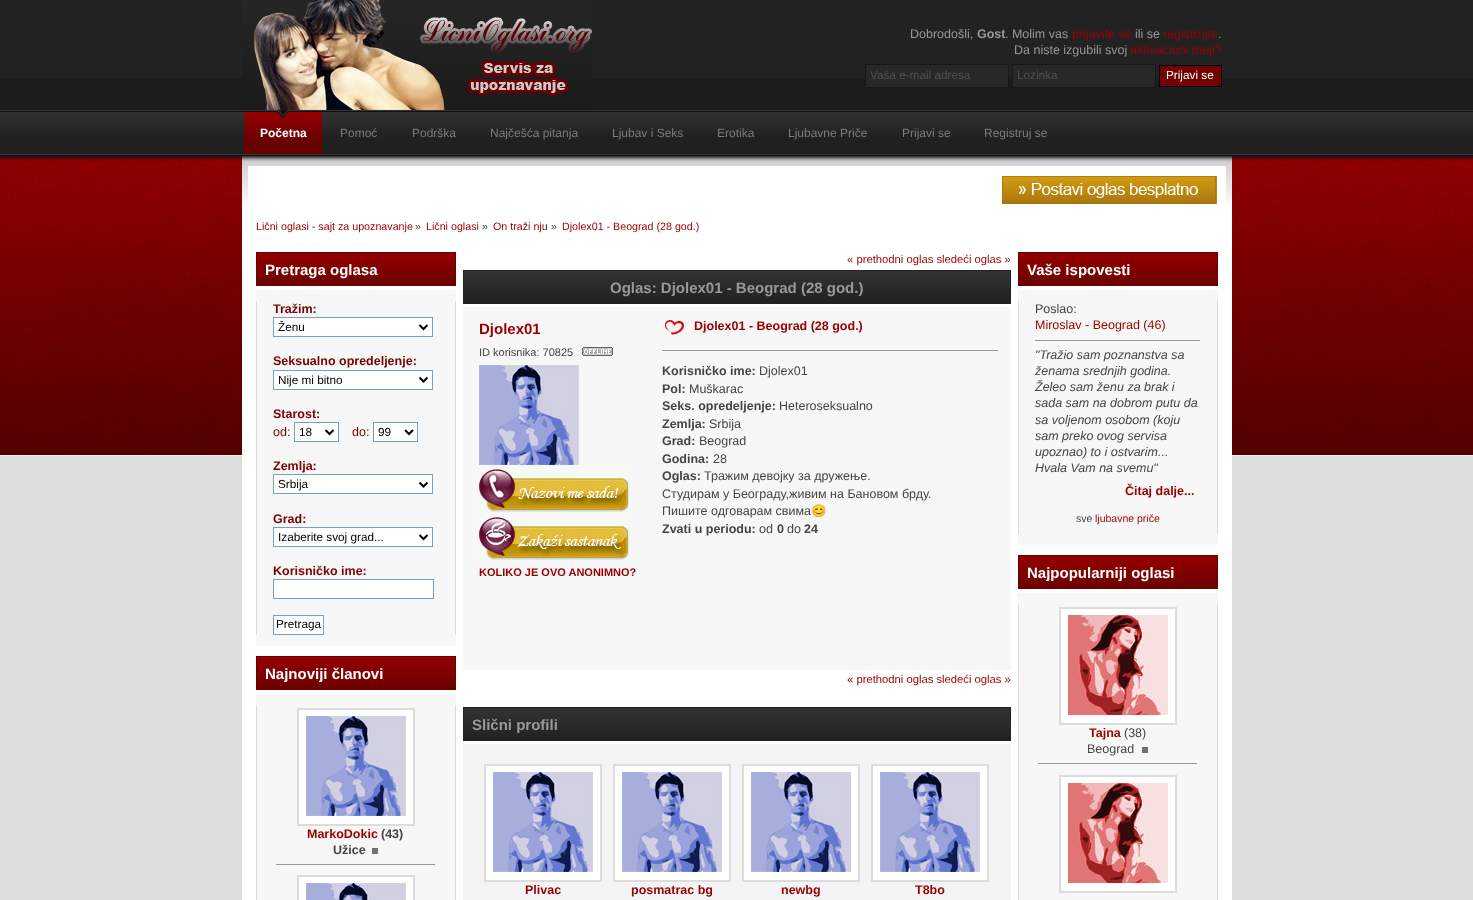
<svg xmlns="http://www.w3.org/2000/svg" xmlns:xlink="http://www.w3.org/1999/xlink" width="1473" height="900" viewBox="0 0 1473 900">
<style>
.cls-1{font:12.5px Liberation Sans;fill:#999999}
.cls-2{font:bold 12.5px Liberation Sans;fill:#999999}
.cls-3{font:12.5px Liberation Sans;fill:#980000}
.cls-4{font:11.75px Liberation Sans;fill:#515151}
.cls-5{font:11.75px Liberation Sans;fill:#ffffff}
.cls-6{font:bold 12px Liberation Sans;fill:#ffffff}
.cls-7{font:12px Liberation Sans;fill:#7c7c7c}
.cls-8{font:10.7px Liberation Sans;fill:#980000}
.cls-9{font:10.7px Liberation Sans;fill:#444444}
.cls-10{font:bold 15px Liberation Sans;fill:#ffffff}
.cls-11{font:bold 12.5px Liberation Sans;fill:#790101}
.cls-12{font:11.75px Liberation Sans;fill:#000000}
.cls-13{font:12.5px Liberation Sans;fill:#790101}
.cls-14{font:bold 12.5px Liberation Sans;fill:#980000}
.cls-15{font:bold 12.5px Liberation Sans;fill:#444444}
.cls-16{font:11.25px Liberation Sans;fill:#980000}
.cls-17{font:bold 15px Liberation Sans;fill:#999999}
.cls-18{font:bold 15px Liberation Sans;fill:#980000}
.cls-19{font:11px Liberation Sans;fill:#444444}
.cls-20{font:bold 11px Liberation Sans;fill:#980000}
.cls-21{font:12.5px Liberation Sans;fill:#444444}
.cls-22{font:12.5px Noto Color Emoji;fill:#444444}
.cls-23{font:italic 12.5px Liberation Sans;fill:#444444}
.cls-24{font:10.5px Liberation Sans;fill:#444444}
.cls-25{font:10.5px Liberation Sans;fill:#980000}
</style>
<rect width="100%" height="100%" fill="#222222"/>
<rect fill="#1c1c1c" x="0" y="78" width="1473" height="32"/>
<image xlink:href="image0.png" x="242" y="0" width="350" height="110"/>
<rect fill="#282828" stroke="#171717" x="865.5" y="64.5" width="143" height="23"/>
<rect fill="#282828" stroke="#171717" x="1012.5" y="64.5" width="143" height="23"/>
<rect fill="#720101" stroke="#000000" x="1159.5" y="65.5" width="62" height="21"/>
<image xlink:href="image1.png" x="0" y="110" width="1473" height="46"/>
<image xlink:href="image2.png" x="244" y="110" width="78" height="44"/>
<rect fill="#dedede" x="0" y="456" width="1473" height="444"/>
<image xlink:href="image3.png" x="0" y="156" width="1473" height="300"/>
<rect fill="#ffffff" x="242" y="204" width="990" height="696"/>
<image xlink:href="image4.png" x="242" y="156" width="990" height="48"/>
<rect fill="#ffffff" x="248" y="166" width="978" height="38"/>
<image xlink:href="image5.png" x="1002" y="176" width="215" height="28"/>
<image xlink:href="image6.png" x="1002" y="176" width="214" height="28"/>
<image xlink:href="image7.png" x="256" y="252" width="200" height="34"/>
<rect fill="#6a0101" x="455" y="253" width="1" height="30"/>
<rect fill="#f7f7f7" x="256" y="290" width="200" height="11"/>
<rect fill="#f7f7f7" x="257" y="301" width="198" height="334"/>
<rect fill="#dcdcdc" x="455" y="301" width="1" height="334"/>
<rect fill="#dcdcdc" x="256" y="301" width="1" height="334"/>
<rect fill="#ffffff" stroke="#7f9db9" x="273.5" y="317.5" width="159" height="19"/>
<path fill="none" stroke="#000000" stroke-width="2" d="M419.5 325L423.5 329L427.5 325"/>
<rect fill="#ffffff" stroke="#7f9db9" x="273.5" y="370.5" width="159" height="19"/>
<path fill="none" stroke="#000000" stroke-width="2" d="M419.5 377.5L423.5 381.5L427.5 377.5"/>
<rect fill="#ffffff" stroke="#7f9db9" x="294.5" y="422.5" width="44" height="19"/>
<path fill="none" stroke="#000000" stroke-width="2" d="M325.5 430L329.5 434L333.5 430"/>
<rect fill="#ffffff" stroke="#7f9db9" x="373.5" y="422.5" width="44" height="19"/>
<path fill="none" stroke="#000000" stroke-width="2" d="M405 430L409 434L413 430"/>
<rect fill="#ffffff" stroke="#7f9db9" x="273.5" y="474.5" width="159" height="19"/>
<path fill="none" stroke="#000000" stroke-width="2" d="M419.5 482.5L423.5 486.5L427.5 482.5"/>
<rect fill="#ffffff" stroke="#7f9db9" x="273.5" y="527.5" width="159" height="19"/>
<path fill="none" stroke="#000000" stroke-width="2" d="M419.5 535L423.5 539L427.5 535"/>
<rect fill="#ffffff" stroke="#7f9db9" x="273.5" y="579.5" width="160" height="19"/>
<rect fill="#ffffff" stroke="#7f9db9" x="273.5" y="615.5" width="50" height="19"/>
<rect fill="#f7f7f7" x="256" y="635" width="200" height="11"/>
<image xlink:href="image7.png" x="256" y="656" width="200" height="34"/>
<rect fill="#6a0101" x="455" y="657" width="1" height="30"/>
<rect fill="#f7f7f7" x="256" y="694" width="200" height="11"/>
<rect fill="#f7f7f7" x="257" y="705" width="198" height="195"/>
<rect fill="#dcdcdc" x="455" y="705" width="1" height="195"/>
<rect fill="#dcdcdc" x="256" y="705" width="1" height="195"/>
<rect fill="#ffffff" stroke="#dcdcdc" stroke-width="2" x="298" y="709" width="116" height="116"/>
<image xlink:href="image8.png" x="306" y="716" width="100" height="100"/>
<rect fill="#727272" x="372" y="848" width="6" height="6"/>
<rect fill="#989898" x="276" y="864" width="159" height="1"/>
<rect fill="#ffffff" stroke="#dcdcdc" stroke-width="2" x="298" y="876" width="116" height="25"/>
<image xlink:href="image9.png" x="306" y="883" width="100" height="17"/>
<image xlink:href="image10.png" x="463" y="270" width="548" height="34"/>
<rect fill="#222222" x="1010" y="271" width="1" height="22"/>
<rect fill="#f7f7f7" x="463" y="307" width="548" height="363"/>
<image xlink:href="image11.png" x="582" y="347" width="31" height="9"/>
<image xlink:href="image8.png" x="479" y="365" width="100" height="100"/>
<image xlink:href="image12.png" x="479" y="469" width="150" height="43"/>
<image xlink:href="image13.png" x="479" y="517" width="150" height="43"/>
<image xlink:href="image14.png" x="665" y="320" width="19" height="15"/>
<rect fill="#999999" x="662" y="350" width="336" height="1"/>
<image xlink:href="image10.png" x="463" y="707" width="548" height="34"/>
<rect fill="#222222" x="1010" y="708" width="1" height="22"/>
<rect fill="#f4f4f4" x="463" y="744" width="548" height="156"/>
<rect fill="#ffffff" stroke="#dcdcdc" stroke-width="2" x="485" y="765" width="116" height="116"/>
<image xlink:href="image8.png" x="493" y="772" width="100" height="100"/>
<rect fill="#ffffff" stroke="#dcdcdc" stroke-width="2" x="614" y="765" width="116" height="116"/>
<image xlink:href="image8.png" x="622" y="772" width="100" height="100"/>
<rect fill="#ffffff" stroke="#dcdcdc" stroke-width="2" x="743" y="765" width="116" height="116"/>
<image xlink:href="image8.png" x="751" y="772" width="100" height="100"/>
<rect fill="#ffffff" stroke="#dcdcdc" stroke-width="2" x="872" y="765" width="116" height="116"/>
<image xlink:href="image8.png" x="880" y="772" width="100" height="100"/>
<image xlink:href="image7.png" x="1018" y="252" width="200" height="34"/>
<rect fill="#6a0101" x="1217" y="253" width="1" height="30"/>
<rect fill="#f7f7f7" x="1018" y="290" width="200" height="11"/>
<rect fill="#f7f7f7" x="1019" y="301" width="198" height="233"/>
<rect fill="#dcdcdc" x="1217" y="301" width="1" height="233"/>
<rect fill="#dcdcdc" x="1018" y="301" width="1" height="233"/>
<rect fill="#989898" x="1035" y="340" width="165" height="1"/>
<rect fill="#f7f7f7" x="1018" y="534" width="200" height="11"/>
<image xlink:href="image7.png" x="1018" y="555" width="200" height="34"/>
<rect fill="#6a0101" x="1217" y="556" width="1" height="30"/>
<rect fill="#f7f7f7" x="1018" y="593" width="200" height="11"/>
<rect fill="#f7f7f7" x="1019" y="604" width="198" height="296"/>
<rect fill="#dcdcdc" x="1217" y="604" width="1" height="296"/>
<rect fill="#dcdcdc" x="1018" y="604" width="1" height="296"/>
<rect fill="#ffffff" stroke="#dcdcdc" stroke-width="2" x="1060" y="608" width="116" height="116"/>
<image xlink:href="image15.png" x="1068" y="615" width="100" height="100"/>
<rect fill="#727272" x="1142" y="747" width="6" height="6"/>
<rect fill="#989898" x="1038" y="763" width="159" height="1"/>
<rect fill="#ffffff" stroke="#dcdcdc" stroke-width="2" x="1060" y="776" width="116" height="116"/>
<image xlink:href="image15.png" x="1068" y="783" width="100" height="100"/>
<text class="cls-1" x="910" y="38">Dobrodošli,</text>
<text class="cls-2" x="977" y="38">Gost</text>
<text class="cls-1" x="1005" y="38">. Molim vas</text>
<text class="cls-3" x="1072" y="38">prijavite se</text>
<text class="cls-1" x="1135" y="38">ili se</text>
<text class="cls-3" x="1163" y="38">registrujte</text>
<text class="cls-1" x="1218" y="38">.</text>
<text class="cls-1" x="1014" y="54">Da niste izgubili svoj</text>
<text class="cls-3" x="1130" y="54">aktivacioni mejl?</text>
<text class="cls-4" x="870" y="79">Vaša e-mail adresa</text>
<text class="cls-4" x="1017" y="79">Lozinka</text>
<text class="cls-5" x="1166" y="79">Prijavi se</text>
<text class="cls-6" x="260" y="137">Početna</text>
<text class="cls-7" x="340" y="137">Pomoć</text>
<text class="cls-7" x="412" y="137">Podrška</text>
<text class="cls-7" x="490" y="137">Najčešća pitanja</text>
<text class="cls-7" x="612" y="137">Ljubav i Seks</text>
<text class="cls-7" x="717" y="137">Erotika</text>
<text class="cls-7" x="788" y="137">Ljubavne Priče</text>
<text class="cls-7" x="902" y="137">Prijavi se</text>
<text class="cls-7" x="984" y="137">Registruj se</text>
<text class="cls-8" x="256" y="230">Lični oglasi - sajt za upoznavanje</text>
<text class="cls-9" x="415" y="230">»</text>
<text class="cls-8" x="426" y="230">Lični oglasi</text>
<text class="cls-9" x="482" y="230">»</text>
<text class="cls-8" x="493" y="230">On traži nju</text>
<text class="cls-9" x="551" y="230">»</text>
<text class="cls-8" x="562" y="230">Djolex01 - Beograd (28 god.)</text>
<text class="cls-10" x="265" y="275">Pretraga oglasa</text>
<text class="cls-11" x="273" y="313">Tražim:</text>
<text class="cls-12" x="278" y="331">Ženu</text>
<text class="cls-11" x="273" y="365">Seksualno opredeljenje:</text>
<text class="cls-12" x="278" y="384">Nije mi bitno</text>
<text class="cls-11" x="273" y="418">Starost:</text>
<text class="cls-13" x="273" y="436">od:</text>
<text class="cls-12" x="299" y="436">18</text>
<text class="cls-13" x="352" y="436">do:</text>
<text class="cls-12" x="378" y="436">99</text>
<text class="cls-11" x="273" y="470">Zemlja:</text>
<text class="cls-12" x="278" y="488">Srbija</text>
<text class="cls-11" x="273" y="523">Grad:</text>
<text class="cls-12" x="278" y="541">Izaberite svoj grad...</text>
<text class="cls-11" x="273" y="575">Korisničko ime:</text>
<text class="cls-12" x="276" y="628">Pretraga</text>
<text class="cls-10" x="265" y="679">Najnoviji članovi</text>
<text class="cls-14" x="307" y="838">MarkoDokic</text>
<text class="cls-15" x="381" y="838">(43)</text>
<text class="cls-15" x="333" y="854">Užice</text>
<text class="cls-16" x="847" y="263">« prethodni oglas sledeći oglas »</text>
<text class="cls-17" x="610" y="293">Oglas: Djolex01 - Beograd (28 god.)</text>
<text class="cls-18" x="479" y="334">Djolex01</text>
<text class="cls-19" x="479" y="356">ID korisnika: 70825</text>
<text class="cls-20" x="479" y="576">KOLIKO JE OVO ANONIMNO?</text>
<text class="cls-14" x="694" y="330">Djolex01 - Beograd (28 god.)</text>
<text class="cls-15" x="662" y="375">Korisničko ime:</text>
<text class="cls-21" x="759" y="375">Djolex01</text>
<text class="cls-15" x="662" y="393">Pol:</text>
<text class="cls-21" x="689" y="393">Muškarac</text>
<text class="cls-15" x="662" y="410">Seks. opredeljenje:</text>
<text class="cls-21" x="779" y="410">Heteroseksualno</text>
<text class="cls-15" x="662" y="428">Zemlja:</text>
<text class="cls-21" x="709" y="428">Srbija</text>
<text class="cls-15" x="662" y="445">Grad:</text>
<text class="cls-21" x="699" y="445">Beograd</text>
<text class="cls-15" x="662" y="463">Godina:</text>
<text class="cls-21" x="713" y="463">28</text>
<text class="cls-15" x="662" y="480">Oglas:</text>
<text class="cls-21" x="704" y="480">Тражим девојку за дружење.</text>
<text class="cls-21"><tspan x="662" y="498">Студирам у Београду,живим на Бановом брду.</tspan><tspan x="662" y="515">Пишите одговарам свима</tspan></text>
<text class="cls-22" x="811" y="515">😊</text>
<text class="cls-15" x="662" y="533">Zvati u periodu:</text>
<text class="cls-21" x="759" y="533">od</text>
<text class="cls-15" x="777" y="533">0</text>
<text class="cls-21" x="787" y="533">do</text>
<text class="cls-15" x="804" y="533">24</text>
<text class="cls-16" x="847" y="683">« prethodni oglas sledeći oglas »</text>
<text class="cls-17" x="472" y="730">Slični profili</text>
<text class="cls-14" x="525" y="894">Plivac</text>
<text class="cls-14" x="631" y="894">posmatrac bg</text>
<text class="cls-14" x="781" y="894">newbg</text>
<text class="cls-14" x="915" y="894">T8bo</text>
<text class="cls-10" x="1027" y="275">Vaše ispovesti</text>
<text class="cls-21" x="1035" y="313">Poslao:</text>
<text class="cls-3" x="1035" y="329">Miroslav - Beograd (46)</text>
<text class="cls-23"><tspan x="1035" y="359">"Tražio sam poznanstva sa</tspan><tspan x="1035" y="375">ženama srednjih godina.</tspan><tspan x="1035" y="391">Želeo sam ženu za brak i</tspan><tspan x="1035" y="407">sada sam na dobrom putu da</tspan><tspan x="1035" y="424">sa voljenom osobom (koju</tspan><tspan x="1035" y="440">sam preko ovog servisa</tspan><tspan x="1035" y="456">upoznao) to i ostvarim...</tspan><tspan x="1035" y="472">Hvala Vam na svemu"</tspan></text>
<text class="cls-14" x="1125" y="495">Čitaj dalje...</text>
<text class="cls-24" x="1076" y="522">sve</text>
<text class="cls-25" x="1095" y="522">ljubavne priče</text>
<text class="cls-10" x="1027" y="578">Najpopularniji oglasi</text>
<text class="cls-14" x="1089" y="737">Tajna</text>
<text class="cls-21" x="1124" y="737">(38)</text>
<text class="cls-21" x="1087" y="753">Beograd</text>
</svg>
